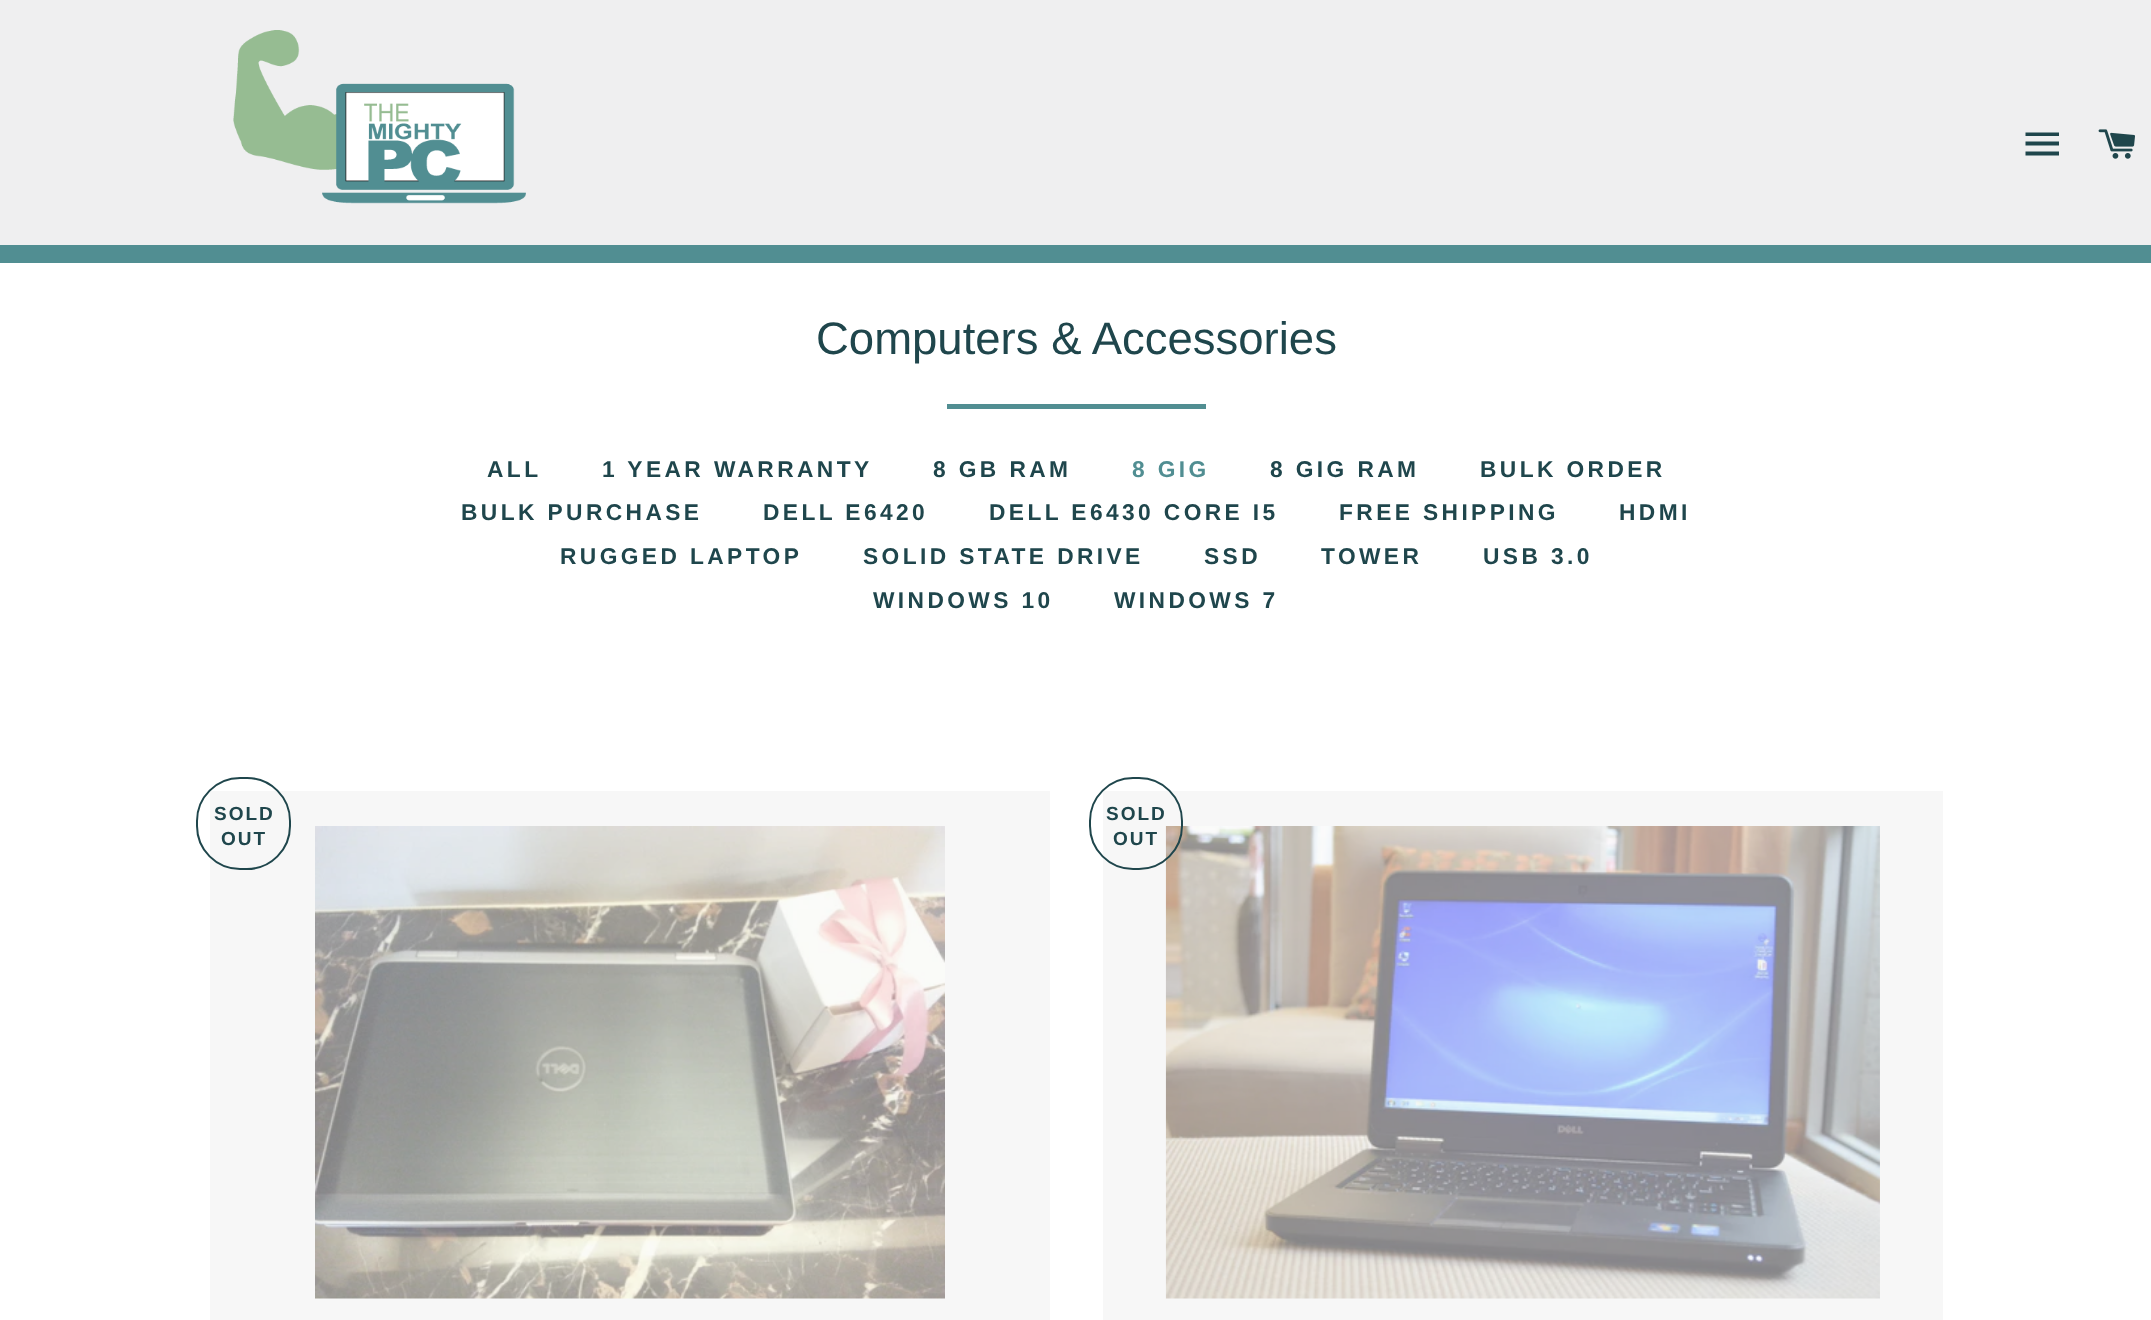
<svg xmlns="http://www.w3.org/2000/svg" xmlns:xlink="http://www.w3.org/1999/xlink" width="2151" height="1320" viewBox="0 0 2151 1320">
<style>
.cls-1{font:45.5px Liberation Sans;fill:#1f464c}
.cls-2{font:bold 22.75px Liberation Sans;letter-spacing:3.4px;fill:#1f464c}
.cls-3{font:bold 22.75px Liberation Sans;letter-spacing:3.4px;fill:#518e92}
.cls-4{font:bold 19px Liberation Sans;letter-spacing:2px;fill:#1f464c}
</style>
<rect width="100%" height="100%" fill="#ffffff"/>
<rect fill="#efeff0" x="0" y="0" width="2151" height="245"/>
<image xlink:href="image0.png" x="233" y="30" width="293" height="174"/>
<path fill="#1f464c" d="M2025.5 132.5H2059V136H2025.5ZM2025.5 141.5H2059V145.5H2025.5ZM2025.5 151.5H2059V155.5H2025.5Z"/>
<image xlink:href="image1.png" x="2098" y="129" width="37" height="30"/>
<rect fill="#518e92" x="0" y="245" width="2151" height="18"/>
<rect fill="#518e92" x="947" y="404" width="259" height="5"/>
<rect fill="#f7f7f7" x="210" y="791" width="840" height="529"/>
<image xlink:href="image2.png" x="315" y="826" width="630" height="473"/>
<rect fill="none" stroke="#1f464c" stroke-width="2" x="197" y="778" width="93" height="91" rx="43"/>
<rect fill="#f7f7f7" x="1103" y="791" width="840" height="529"/>
<image xlink:href="image3.png" x="1165" y="826" width="715" height="473"/>
<rect fill="none" stroke="#1f464c" stroke-width="2" x="1090" y="778" width="92" height="91" rx="43"/>
<text class="cls-1" x="816" y="354">Computers &amp; Accessories</text>
<text class="cls-2" x="487" y="477">ALL</text>
<text class="cls-2" x="602" y="477">1 YEAR WARRANTY</text>
<text class="cls-2" x="933" y="477">8 GB RAM</text>
<text class="cls-3" x="1132" y="477">8 GIG</text>
<text class="cls-2" x="1270" y="477">8 GIG RAM</text>
<text class="cls-2" x="1480" y="477">BULK ORDER</text>
<text class="cls-2" x="461" y="520">BULK PURCHASE</text>
<text class="cls-2" x="763" y="520">DELL E6420</text>
<text class="cls-2" x="989" y="520">DELL E6430 CORE I5</text>
<text class="cls-2" x="1339" y="520">FREE SHIPPING</text>
<text class="cls-2" x="1619" y="520">HDMI</text>
<text class="cls-2" x="560" y="564">RUGGED LAPTOP</text>
<text class="cls-2" x="863" y="564">SOLID STATE DRIVE</text>
<text class="cls-2" x="1204" y="564">SSD</text>
<text class="cls-2" x="1321" y="564">TOWER</text>
<text class="cls-2" x="1483" y="564">USB 3.0</text>
<text class="cls-2" x="873" y="608">WINDOWS 10</text>
<text class="cls-2" x="1114" y="608">WINDOWS 7</text>
<text class="cls-4" x="214" y="820">SOLD</text>
<text class="cls-4" x="221" y="845">OUT</text>
<text class="cls-4" x="1106" y="820">SOLD</text>
<text class="cls-4" x="1113" y="845">OUT</text>
</svg>
